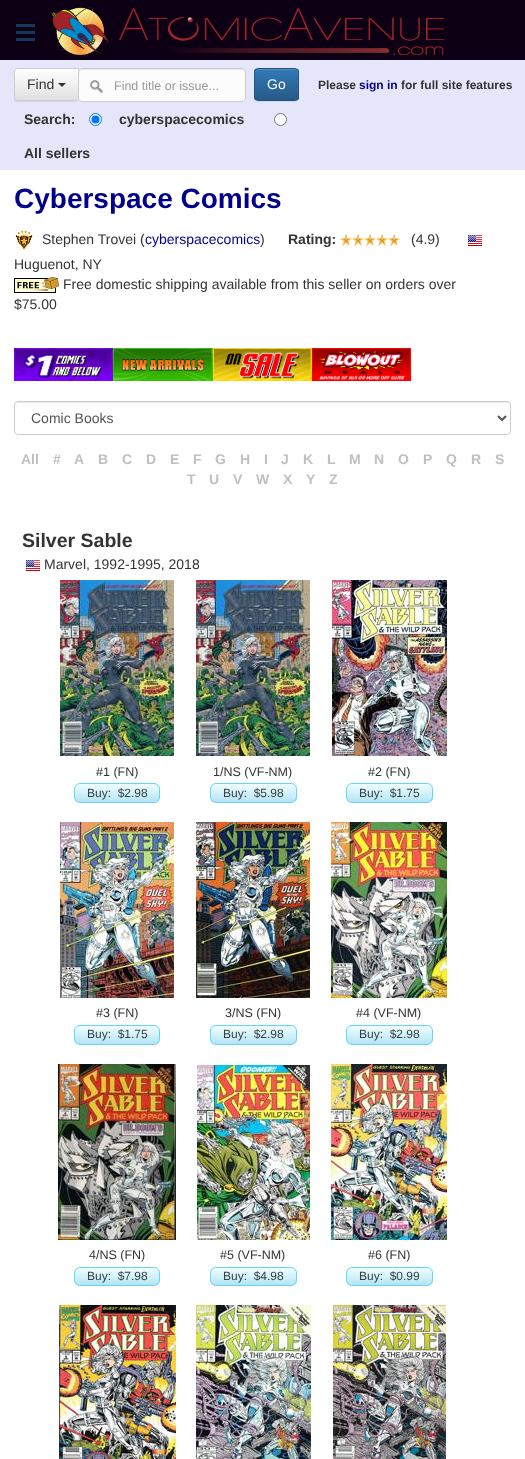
<svg xmlns="http://www.w3.org/2000/svg" xmlns:xlink="http://www.w3.org/1999/xlink" width="525" height="1459" viewBox="0 0 525 1459">
<style>
.cls-1{font:14px Liberation Sans;fill:#333333}
.cls-2{font:12.5px Liberation Sans;fill:#999999}
.cls-3{font:14px Liberation Sans;fill:#ffffff}
.cls-4{font:bold 14px Liberation Sans;fill:#333333}
.cls-5{font:bold 12px Liberation Sans;fill:#333333}
.cls-6{font:bold 12px Liberation Sans;fill:#00008b}
.cls-7{font:bold 28px Liberation Sans;fill:#00008b}
.cls-8{font:14px Liberation Sans;fill:#00008b}
.cls-9{font:14px Liberation Sans;fill:#555555}
.cls-10{font:bold 14px Liberation Sans;fill:#c0c0c0}
.cls-11{font:bold 19.5px Liberation Sans;fill:#333333}
.cls-12{font:12.5px Liberation Sans;fill:#333333}
.cls-13{font:12px Liberation Sans;fill:#393f41}
</style>
<defs>
<clipPath id="clip1"><path d="M18 68H79V101H18C16 101 14 99 14 97V72C14 70 16 68 18 68Z"/></clipPath>
<linearGradient id="g1" gradientUnits="userSpaceOnUse" x1="47" y1="69" x2="47" y2="100"><stop offset="0" stop-color="#ffffff"/><stop offset="1" stop-color="#e0e0e0"/></linearGradient>
<clipPath id="clip2"><rect x="254" y="68" width="45" height="33" rx="4"/></clipPath>
<linearGradient id="g2" gradientUnits="userSpaceOnUse" x1="277" y1="69" x2="277" y2="100"><stop offset="0" stop-color="#337ab7"/><stop offset="1" stop-color="#265a88"/></linearGradient>
<clipPath id="clip3"><rect x="74" y="783" width="86" height="20" rx="6"/></clipPath>
<linearGradient id="g3" gradientUnits="userSpaceOnUse" x1="75" y1="784" x2="75" y2="802"><stop offset="0" stop-color="#f0ffff"/><stop offset="1" stop-color="#b4e4f6"/></linearGradient>
<clipPath id="clip4"><rect x="210" y="783" width="87" height="20" rx="6"/></clipPath>
<linearGradient id="g4" gradientUnits="userSpaceOnUse" x1="211" y1="784" x2="211" y2="802"><stop offset="0" stop-color="#f0ffff"/><stop offset="1" stop-color="#b4e4f6"/></linearGradient>
<clipPath id="clip5"><rect x="346" y="783" width="87" height="20" rx="6"/></clipPath>
<linearGradient id="g5" gradientUnits="userSpaceOnUse" x1="347" y1="784" x2="347" y2="802"><stop offset="0" stop-color="#f0ffff"/><stop offset="1" stop-color="#b4e4f6"/></linearGradient>
<clipPath id="clip6"><rect x="74" y="1025" width="86" height="20" rx="6"/></clipPath>
<linearGradient id="g6" gradientUnits="userSpaceOnUse" x1="75" y1="1026" x2="75" y2="1044"><stop offset="0" stop-color="#f0ffff"/><stop offset="1" stop-color="#b4e4f6"/></linearGradient>
<clipPath id="clip7"><rect x="210" y="1025" width="87" height="20" rx="6"/></clipPath>
<linearGradient id="g7" gradientUnits="userSpaceOnUse" x1="211" y1="1026" x2="211" y2="1044"><stop offset="0" stop-color="#f0ffff"/><stop offset="1" stop-color="#b4e4f6"/></linearGradient>
<clipPath id="clip8"><rect x="346" y="1025" width="87" height="20" rx="6"/></clipPath>
<linearGradient id="g8" gradientUnits="userSpaceOnUse" x1="347" y1="1026" x2="347" y2="1044"><stop offset="0" stop-color="#f0ffff"/><stop offset="1" stop-color="#b4e4f6"/></linearGradient>
<clipPath id="clip9"><rect x="74" y="1267" width="86" height="19" rx="6"/></clipPath>
<linearGradient id="g9" gradientUnits="userSpaceOnUse" x1="75" y1="1268" x2="75" y2="1285"><stop offset="0" stop-color="#f0ffff"/><stop offset="1" stop-color="#b4e4f6"/></linearGradient>
<clipPath id="clip10"><rect x="210" y="1267" width="87" height="19" rx="6"/></clipPath>
<linearGradient id="g10" gradientUnits="userSpaceOnUse" x1="211" y1="1268" x2="211" y2="1285"><stop offset="0" stop-color="#f0ffff"/><stop offset="1" stop-color="#b4e4f6"/></linearGradient>
<clipPath id="clip11"><rect x="346" y="1267" width="87" height="19" rx="6"/></clipPath>
<linearGradient id="g11" gradientUnits="userSpaceOnUse" x1="347" y1="1268" x2="347" y2="1285"><stop offset="0" stop-color="#f0ffff"/><stop offset="1" stop-color="#b4e4f6"/></linearGradient>
</defs>
<rect width="100%" height="100%" fill="#ffffff"/>
<rect fill="#0d0015" x="0" y="0" width="525" height="60"/>
<image xlink:href="image0.png" x="16" y="24" width="19" height="17"/>
<image xlink:href="image1.png" x="49" y="7" width="395" height="48"/>
<rect fill="#e6e6fa" x="0" y="60" width="525" height="110"/>
<rect fill="#000000" fill-opacity="0.07" filter="blur(0.5px)" x="14" y="69" width="65" height="33" rx="4"/>
<g clip-path="url(#clip1)">
<rect fill="url(#g1)" x="14" y="69" width="64" height="31"/>
</g>
<path fill="none" stroke="#cccccc" d="M18 68.5H78.5V100.5H18C16 100.5 14.5 99 14.5 97V72C14.5 70 16 68.5 18 68.5Z"/>
<path fill="#333333" d="M58 83H66L62 87Z"/>
<rect fill="#fcfcfc" x="78" y="68" width="168" height="34" rx="4"/>
<image xlink:href="image2.png" x="90" y="80" width="13" height="14"/>
<path fill="#e9e9e9" d="M82 70H242C244 70 245 71 245 73V72C245 70 244 69 242 69H82C80 69 79 70 79 72V73C79 71 80 70 82 70Z"/>
<rect fill="none" stroke="#cccccc" x="78.5" y="68.5" width="167" height="33" rx="3.5"/>
<rect fill="#000000" fill-opacity="0.07" filter="blur(0.5px)" x="254" y="69" width="45" height="33" rx="4"/>
<g clip-path="url(#clip2)">
<rect fill="url(#g2)" x="254" y="69" width="45" height="31"/>
</g>
<path fill="#528dc1" d="M258 70H295C297 70 298 71 298 73C298 68 293 69 289 69H264C260 69 255 68 255 73C255 71 256 70 258 70Z"/>
<rect fill="none" stroke="#245580" x="254.5" y="68.5" width="44" height="32" rx="3.5"/>
<circle fill="#ffffff" stroke="#0075ff" cx="95.5" cy="119.5" r="6"/>
<circle fill="#0075ff" cx="95.5" cy="119.5" r="4"/>
<circle fill="#ffffff" stroke="#767676" cx="280.5" cy="119.5" r="6"/>
<image xlink:href="image3.png" x="15" y="230" width="18" height="20"/>
<image xlink:href="image4.png" x="340" y="234" width="60" height="12"/>
<image xlink:href="image5.png" x="468" y="235" width="14" height="11"/>
<image xlink:href="image6.png" x="14" y="277" width="45" height="16"/>
<image xlink:href="image7.png" x="14" y="348" width="99" height="33"/>
<image xlink:href="image8.png" x="113" y="348" width="100" height="33"/>
<image xlink:href="image9.png" x="213" y="348" width="99" height="33"/>
<image xlink:href="image10.png" x="312" y="348" width="99" height="33"/>
<path fill="#ececec" d="M18 403H507C509 403 510 404 510 406C510 404 509 402 507 402H18C16 402 15 404 15 406C15 404 16 403 18 403Z"/>
<rect fill="none" stroke="#cccccc" x="14.5" y="401.5" width="496" height="33" rx="3.5"/>
<path fill="none" stroke="#555555" stroke-width="2" d="M498 416L502 420L506 416"/>
<image xlink:href="image5.png" x="26" y="560" width="14" height="11"/>
<image xlink:href="image11.png" x="60" y="580" width="114" height="176"/>
<g clip-path="url(#clip3)">
<rect fill="url(#g3)" x="74" y="784" width="86" height="18"/>
</g>
<rect fill="none" stroke="#68d4fd" x="74.5" y="783.5" width="85" height="19" rx="5.5"/>
<image xlink:href="image12.png" x="196" y="580" width="114" height="176"/>
<g clip-path="url(#clip4)">
<rect fill="url(#g4)" x="210" y="784" width="87" height="18"/>
</g>
<rect fill="none" stroke="#68d4fd" x="210.5" y="783.5" width="86" height="19" rx="5.5"/>
<image xlink:href="image13.png" x="332" y="580" width="115" height="176"/>
<g clip-path="url(#clip5)">
<rect fill="url(#g5)" x="346" y="784" width="87" height="18"/>
</g>
<rect fill="none" stroke="#68d4fd" x="346.5" y="783.5" width="86" height="19" rx="5.5"/>
<image xlink:href="image14.png" x="60" y="822" width="114" height="176"/>
<g clip-path="url(#clip6)">
<rect fill="url(#g6)" x="74" y="1026" width="86" height="18"/>
</g>
<rect fill="none" stroke="#68d4fd" x="74.5" y="1025.5" width="85" height="19" rx="5.5"/>
<image xlink:href="image15.png" x="196" y="822" width="114" height="176"/>
<g clip-path="url(#clip7)">
<rect fill="url(#g7)" x="210" y="1026" width="87" height="18"/>
</g>
<rect fill="none" stroke="#68d4fd" x="210.5" y="1025.5" width="86" height="19" rx="5.5"/>
<image xlink:href="image16.png" x="331" y="822" width="116" height="176"/>
<g clip-path="url(#clip8)">
<rect fill="url(#g8)" x="346" y="1026" width="87" height="18"/>
</g>
<rect fill="none" stroke="#68d4fd" x="346.5" y="1025.5" width="86" height="19" rx="5.5"/>
<image xlink:href="image17.png" x="58" y="1064" width="118" height="176"/>
<g clip-path="url(#clip9)">
<rect fill="url(#g9)" x="74" y="1268" width="86" height="17"/>
</g>
<rect fill="none" stroke="#68d4fd" x="74.5" y="1267.5" width="85" height="18" rx="5.5"/>
<image xlink:href="image18.png" x="197" y="1065" width="113" height="175"/>
<g clip-path="url(#clip10)">
<rect fill="url(#g10)" x="210" y="1268" width="87" height="17"/>
</g>
<rect fill="none" stroke="#68d4fd" x="210.5" y="1267.5" width="86" height="18" rx="5.5"/>
<image xlink:href="image19.png" x="331" y="1064" width="116" height="176"/>
<g clip-path="url(#clip11)">
<rect fill="url(#g11)" x="346" y="1268" width="87" height="17"/>
</g>
<rect fill="none" stroke="#68d4fd" x="346.5" y="1267.5" width="86" height="18" rx="5.5"/>
<image xlink:href="image20.png" x="59" y="1305" width="117" height="154"/>
<image xlink:href="image21.png" x="196" y="1305" width="115" height="154"/>
<image xlink:href="image22.png" x="333" y="1305" width="113" height="154"/>
<text class="cls-1" x="27" y="89">Find</text>
<text class="cls-2" x="114" y="90">Find title or issue...</text>
<text class="cls-3" x="267" y="89">Go</text>
<text class="cls-4" x="24" y="124">Search:</text>
<text class="cls-4" x="119" y="124">cyberspacecomics</text>
<text class="cls-4" x="24" y="158">All sellers</text>
<text class="cls-5" x="318" y="89">Please</text>
<text class="cls-6" x="359" y="89">sign in</text>
<text class="cls-5" x="401" y="89">for full site features</text>
<text class="cls-7" x="14" y="208">Cyberspace Comics</text>
<text class="cls-1" x="42" y="244">Stephen Trovei (</text>
<text class="cls-8" x="145" y="244">cyberspacecomics</text>
<text class="cls-1" x="260" y="244">)</text>
<text class="cls-4" x="288" y="244">Rating:</text>
<text class="cls-1" x="411" y="244">(4.9)</text>
<text class="cls-1" x="14" y="269">Huguenot, NY</text>
<text class="cls-1" x="63" y="289">Free domestic shipping available from this seller on orders over</text>
<text class="cls-1" x="14" y="309">$75.00</text>
<text class="cls-9" x="31" y="423">Comic Books</text>
<text class="cls-10" x="21" y="464">All</text>
<text class="cls-10" x="53" y="464">#</text>
<text class="cls-10" x="74" y="464">A</text>
<text class="cls-10" x="98" y="464">B</text>
<text class="cls-10" x="122" y="464">C</text>
<text class="cls-10" x="146" y="464">D</text>
<text class="cls-10" x="170" y="464">E</text>
<text class="cls-10" x="193" y="464">F</text>
<text class="cls-10" x="215" y="464">G</text>
<text class="cls-10" x="240" y="464">H</text>
<text class="cls-10" x="264" y="464">I</text>
<text class="cls-10" x="281" y="464">J</text>
<text class="cls-10" x="303" y="464">K</text>
<text class="cls-10" x="327" y="464">L</text>
<text class="cls-10" x="349" y="464">M</text>
<text class="cls-10" x="374" y="464">N</text>
<text class="cls-10" x="398" y="464">O</text>
<text class="cls-10" x="423" y="464">P</text>
<text class="cls-10" x="446" y="464">Q</text>
<text class="cls-10" x="471" y="464">R</text>
<text class="cls-10" x="495" y="464">S</text>
<text class="cls-10" x="187" y="484">T</text>
<text class="cls-10" x="209" y="484">U</text>
<text class="cls-10" x="233" y="484">V</text>
<text class="cls-10" x="256" y="484">W</text>
<text class="cls-10" x="283" y="484">X</text>
<text class="cls-10" x="306" y="484">Y</text>
<text class="cls-10" x="329" y="484">Z</text>
<text class="cls-11" x="22" y="547">Silver Sable</text>
<text class="cls-1" x="44" y="569">Marvel, 1992-1995, 2018</text>
<text class="cls-12" x="96" y="776">#1 (FN)</text>
<text class="cls-13" xml:space="preserve" x="87" y="797">Buy:  $2.98</text>
<text class="cls-12" x="213" y="776">1/NS (VF-NM)</text>
<text class="cls-13" xml:space="preserve" x="223" y="797">Buy:  $5.98</text>
<text class="cls-12" x="368" y="776">#2 (FN)</text>
<text class="cls-13" xml:space="preserve" x="359" y="797">Buy:  $1.75</text>
<text class="cls-12" x="96" y="1017">#3 (FN)</text>
<text class="cls-13" xml:space="preserve" x="87" y="1038">Buy:  $1.75</text>
<text class="cls-12" x="225" y="1017">3/NS (FN)</text>
<text class="cls-13" xml:space="preserve" x="223" y="1038">Buy:  $2.98</text>
<text class="cls-12" x="356" y="1017">#4 (VF-NM)</text>
<text class="cls-13" xml:space="preserve" x="359" y="1038">Buy:  $2.98</text>
<text class="cls-12" x="89" y="1259">4/NS (FN)</text>
<text class="cls-13" xml:space="preserve" x="87" y="1280">Buy:  $7.98</text>
<text class="cls-12" x="220" y="1259">#5 (VF-NM)</text>
<text class="cls-13" xml:space="preserve" x="223" y="1280">Buy:  $4.98</text>
<text class="cls-12" x="368" y="1259">#6 (FN)</text>
<text class="cls-13" xml:space="preserve" x="359" y="1280">Buy:  $0.99</text>
</svg>
